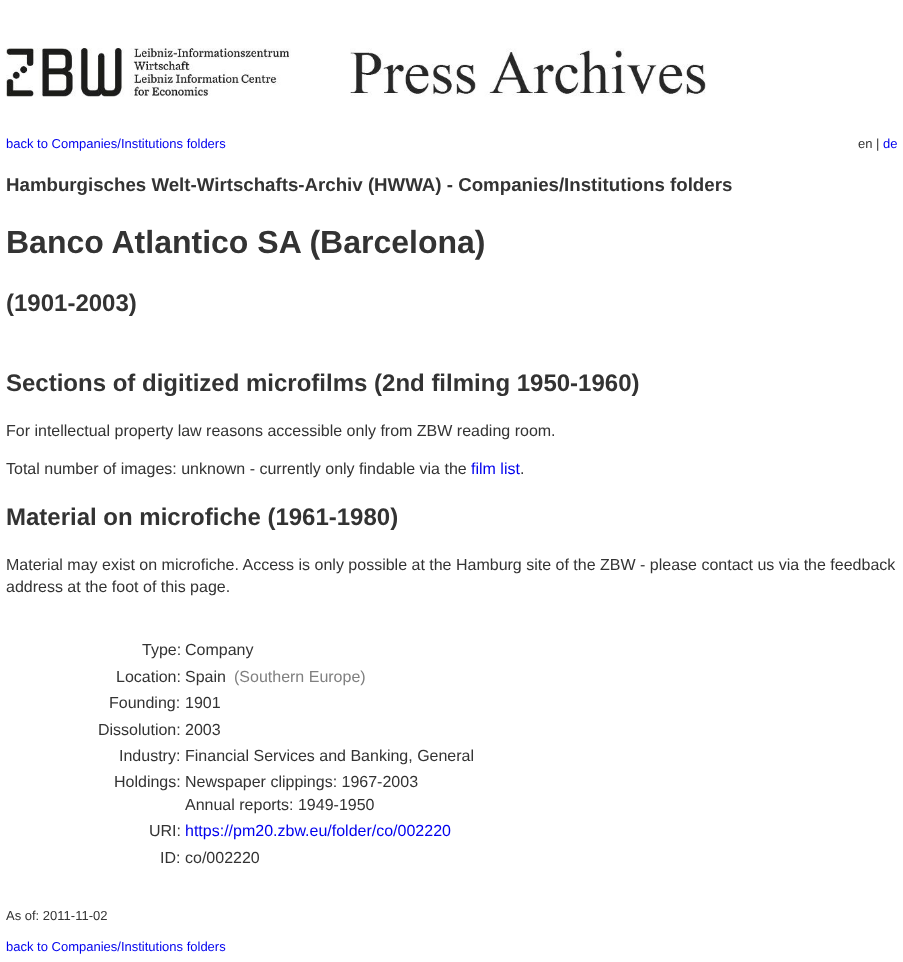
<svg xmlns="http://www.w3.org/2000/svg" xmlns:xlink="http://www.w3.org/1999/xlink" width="903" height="962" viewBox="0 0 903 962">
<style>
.cls-1{font:13px Liberation Sans;fill:#0000ee}
.cls-2{font:13px Liberation Sans;fill:#333333}
.cls-3{font:bold 18.7px Liberation Sans;fill:#333333}
.cls-4{font:bold 32px Liberation Sans;fill:#333333}
.cls-5{font:bold 24px Liberation Sans;fill:#333333}
.cls-6{font:16px Liberation Sans;fill:#333333}
.cls-7{font:16px Liberation Sans;fill:#0000ee}
.cls-8{font:16px Liberation Sans;fill:#808080}
</style>
<rect width="100%" height="100%" fill="#ffffff"/>
<image xlink:href="image0.png" x="6" y="48" width="700" height="49"/>
<text class="cls-1" x="6" y="148">back to Companies/Institutions folders</text>
<text class="cls-2" x="858" y="148">en |</text>
<text class="cls-1" x="883" y="148">de</text>
<text class="cls-3" x="6" y="191">Hamburgisches Welt-Wirtschafts-Archiv (HWWA) - Companies/Institutions folders</text>
<text class="cls-4" x="6" y="253">Banco Atlantico SA (Barcelona)</text>
<text class="cls-5" x="6" y="311">(1901-2003)</text>
<text class="cls-5" x="6" y="391">Sections of digitized microfilms (2nd filming 1950-1960)</text>
<text class="cls-6" x="6" y="436">For intellectual property law reasons accessible only from ZBW reading room.</text>
<text class="cls-6" x="6" y="474">Total number of images: unknown - currently only findable via the</text>
<text class="cls-7" x="471" y="474">film list</text>
<text class="cls-6" x="520" y="474">.</text>
<text class="cls-5" x="6" y="525">Material on microfiche (1961-1980)</text>
<text class="cls-6"><tspan x="6" y="570">Material may exist on microfiche. Access is only possible at the Hamburg site of the ZBW - please contact us via the feedback</tspan><tspan x="6" y="592">address at the foot of this page.</tspan></text>
<text class="cls-6" x="142" y="655">Type:</text>
<text class="cls-6" x="185" y="655">Company</text>
<text class="cls-6" x="116" y="682">Location:</text>
<text class="cls-6" x="185" y="682">Spain</text>
<text class="cls-8" x="234" y="682">(Southern Europe)</text>
<text class="cls-6" x="109" y="708">Founding:</text>
<text class="cls-6" x="185" y="708">1901</text>
<text class="cls-6" x="98" y="735">Dissolution:</text>
<text class="cls-6" x="185" y="735">2003</text>
<text class="cls-6" x="119" y="761">Industry:</text>
<text class="cls-6" x="185" y="761">Financial Services and Banking, General</text>
<text class="cls-6" x="114" y="787">Holdings:</text>
<text class="cls-6"><tspan x="185" y="787">Newspaper clippings: 1967-2003</tspan><tspan x="185" y="810">Annual reports: 1949-1950</tspan></text>
<text class="cls-6" x="149" y="836">URI:</text>
<text class="cls-7" x="185" y="836">https://pm20.zbw.eu/folder/co/002220</text>
<text class="cls-6" x="160" y="863">ID:</text>
<text class="cls-6" x="185" y="863">co/002220</text>
<text class="cls-2" x="6" y="920">As of: 2011-11-02</text>
<text class="cls-1" x="6" y="951">back to Companies/Institutions folders</text>
</svg>
